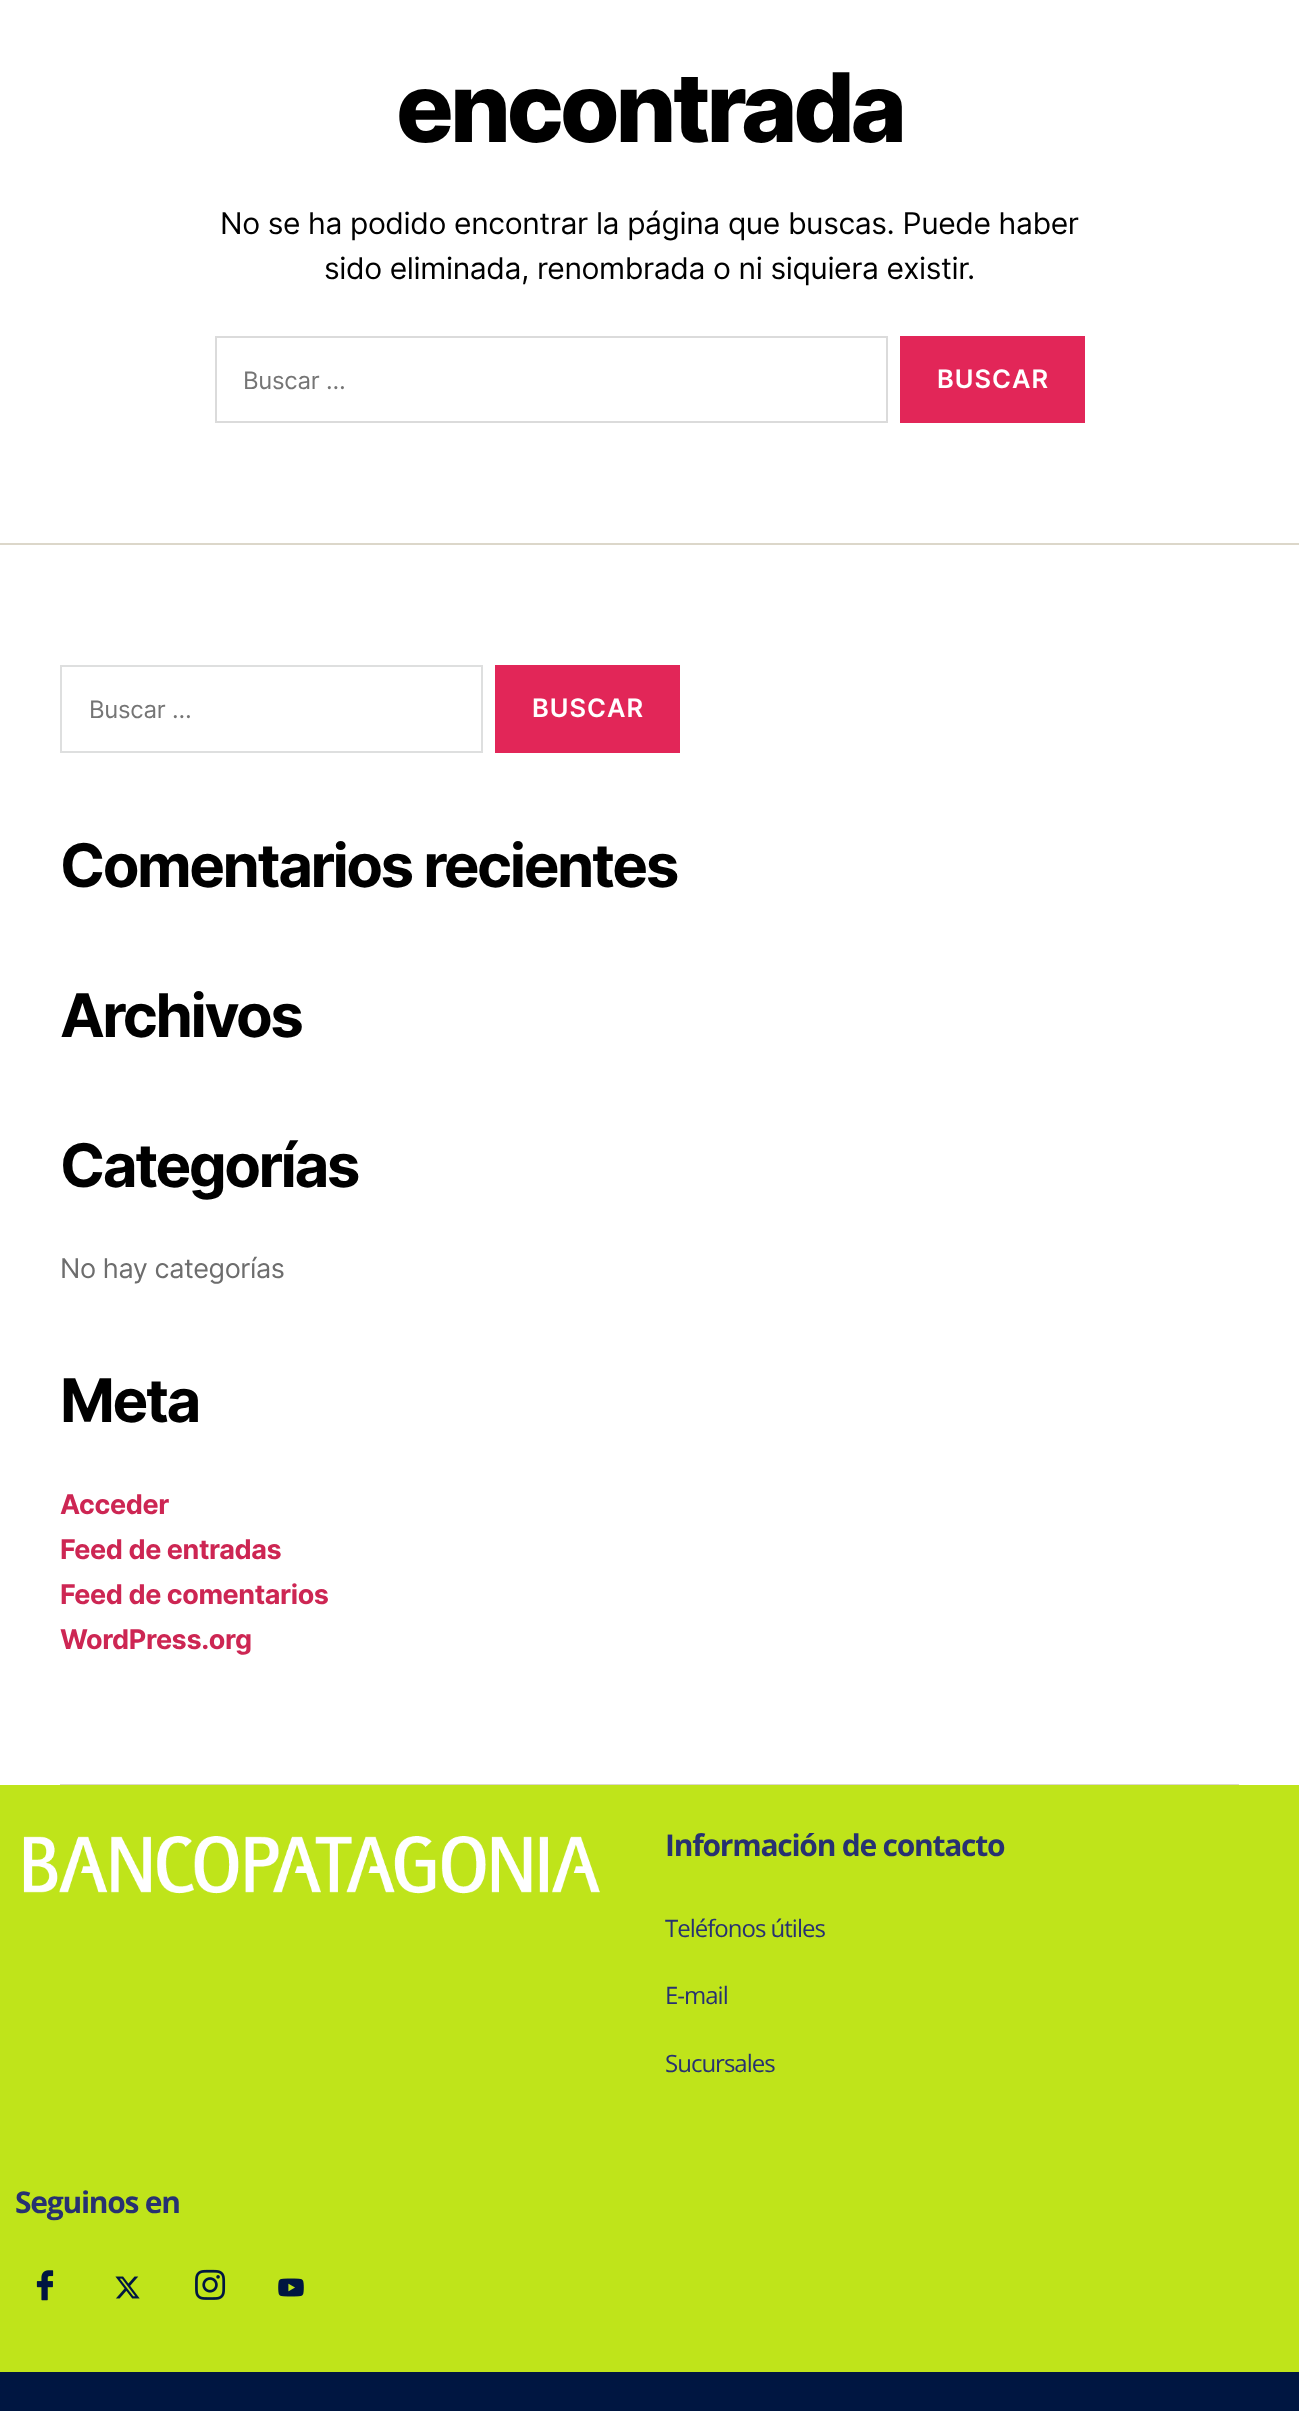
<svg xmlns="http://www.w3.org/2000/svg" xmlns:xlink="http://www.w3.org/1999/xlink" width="1299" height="2411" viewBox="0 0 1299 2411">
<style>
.cls-1{font:800 96px Inter;letter-spacing:-4px;fill:#000000}
.cls-2{font:30px Inter;letter-spacing:-0.4px;fill:#000000}
.cls-3{font:24px Inter;letter-spacing:-0.25px;fill:#757575}
.cls-4{font:600 25.5px Inter;letter-spacing:1px;fill:#ffffff}
.cls-5{font:bold 60px Inter;letter-spacing:-2.5px;fill:#000000}
.cls-6{font:27px Inter;letter-spacing:-0.4px;fill:#6d6d6d}
.cls-7{font:bold 27px Inter;letter-spacing:-0.4px;fill:#cd2653}
.cls-8{font:bold 30px Open Sans;letter-spacing:-1.25px;fill:#273171}
.cls-9{font:24px Open Sans;letter-spacing:-1px;fill:#273171}
</style>
<rect width="100%" height="100%" fill="#ffffff"/>
<rect fill="none" stroke="#dbdbdb" stroke-width="2" x="216" y="337" width="671" height="85"/>
<rect fill="#e22658" x="900" y="336" width="185" height="87"/>
<rect fill="#dcd7ca" x="0" y="543" width="1299" height="2"/>
<rect fill="#dcd7ca" x="60" y="1784" width="1179" height="1"/>
<rect fill="none" stroke="#dedfdf" stroke-width="2" x="61" y="666" width="421" height="86"/>
<rect fill="#e22658" x="495" y="665" width="185" height="88"/>
<rect fill="#bfe41a" x="0" y="1785" width="1299" height="587"/>
<image xlink:href="image0.png" x="23" y="1836" width="577" height="58"/>
<image xlink:href="image1.png" x="36" y="2270" width="18" height="31"/>
<image xlink:href="image2.png" x="115" y="2276" width="25" height="23"/>
<image xlink:href="image3.png" x="195" y="2269" width="31" height="31"/>
<image xlink:href="image4.png" x="278" y="2278" width="26" height="19"/>
<rect fill="#001641" x="0" y="2372" width="1299" height="39"/>
<text class="cls-1" x="396" y="142">encontrada</text>
<text class="cls-2" x="220" y="234">No se ha podido encontrar la página que buscas. Puede haber</text>
<text class="cls-2" x="324" y="279">sido eliminada, renombrada o ni siquiera existir.</text>
<text class="cls-3" x="243" y="389">Buscar …</text>
<text class="cls-4" x="937" y="388">BUSCAR</text>
<text class="cls-3" x="89" y="718">Buscar …</text>
<text class="cls-4" x="532" y="717">BUSCAR</text>
<text class="cls-5" x="60" y="887">Comentarios recientes</text>
<text class="cls-5" x="60" y="1037">Archivos</text>
<text class="cls-5" x="60" y="1187">Categorías</text>
<text class="cls-6" x="60" y="1278">No hay categorías</text>
<text class="cls-5" x="60" y="1422">Meta</text>
<text class="cls-7"><tspan x="60" y="1514">Acceder</tspan><tspan x="60" y="1559">Feed de entradas</tspan><tspan x="60" y="1604">Feed de comentarios</tspan><tspan x="60" y="1649">WordPress.org</tspan></text>
<text class="cls-8" x="665" y="1856">Información de contacto</text>
<text class="cls-9" x="665" y="1937">Teléfonos útiles</text>
<text class="cls-9" x="665" y="2004">E-mail</text>
<text class="cls-9" x="665" y="2072">Sucursales</text>
<text class="cls-8" x="15" y="2213">Seguinos en</text>
</svg>
